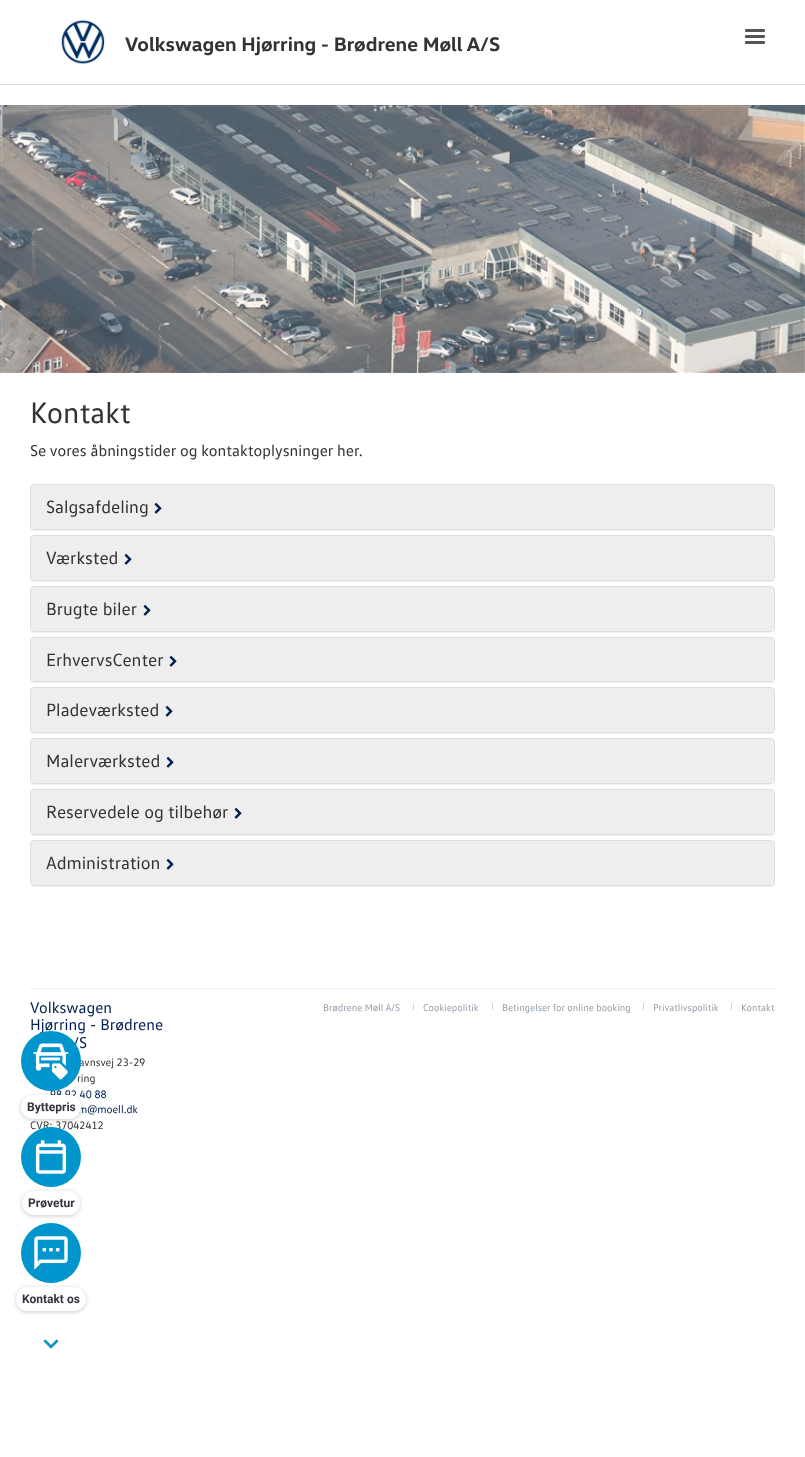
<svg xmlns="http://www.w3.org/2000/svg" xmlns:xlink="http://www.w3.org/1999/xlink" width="805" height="1457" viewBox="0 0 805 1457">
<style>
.cls-1{font:bold 20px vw;fill:#333333}
.cls-2{font:30px vw;fill:#333333}
.cls-3{font:16px vw;fill:#333333}
.cls-4{font:18px vw;fill:#333333}
.cls-5{font:16px vw;fill:#001e50}
.cls-6{font:11px vw;fill:#333333}
.cls-7{font:11px vw;fill:#001e50}
.cls-8{font:10px vw;fill:#949faa}
.cls-9{font:bold 12px Roboto;fill:#31333d}
</style>
<rect width="100%" height="100%" fill="#ffffff"/>
<rect fill="#dddddd" x="0" y="84" width="805" height="1"/>
<image xlink:href="image0.png" x="61" y="20" width="44" height="44"/>
<rect fill="#555555" x="745" y="29" width="20" height="3" rx="1"/>
<rect fill="#555555" x="745" y="35" width="20" height="3" rx="1"/>
<rect fill="#555555" x="745" y="41" width="20" height="3" rx="1"/>
<image xlink:href="image1.png" x="0" y="105" width="805" height="268"/>
<rect fill="#000000" fill-opacity="0.05" filter="blur(0.5px)" x="30" y="485" width="745" height="46" rx="4"/>
<rect fill="none" stroke="#dddddd" x="30.5" y="484.5" width="744" height="45" rx="3.5"/>
<path fill="#eeeeee" d="M34 485H771C772.5 485 774 486.5 774 488V529H31V488C31 486.5 32.5 485 34 485Z"/>
<image xlink:href="image2.png" x="154" y="502" width="8" height="12"/>
<rect fill="#000000" fill-opacity="0.05" filter="blur(0.5px)" x="30" y="536" width="745" height="46" rx="4"/>
<rect fill="none" stroke="#dddddd" x="30.5" y="535.5" width="744" height="45" rx="3.5"/>
<path fill="#eeeeee" d="M34 536H771C772.5 536 774 537.5 774 539V580H31V539C31 537.5 32.5 536 34 536Z"/>
<image xlink:href="image2.png" x="124" y="553" width="8" height="12"/>
<rect fill="#000000" fill-opacity="0.05" filter="blur(0.5px)" x="30" y="587" width="745" height="46" rx="4"/>
<rect fill="none" stroke="#dddddd" x="30.5" y="586.5" width="744" height="45" rx="3.5"/>
<path fill="#eeeeee" d="M34 587H771C772.5 587 774 588.5 774 590V631H31V590C31 588.5 32.5 587 34 587Z"/>
<image xlink:href="image2.png" x="143" y="604" width="8" height="12"/>
<rect fill="#000000" fill-opacity="0.05" filter="blur(0.5px)" x="30" y="638" width="745" height="45" rx="4"/>
<rect fill="none" stroke="#dddddd" x="30.5" y="637.5" width="744" height="44" rx="3.5"/>
<path fill="#eeeeee" d="M34 638H771C772.5 638 774 639.5 774 641V681H31V641C31 639.5 32.5 638 34 638Z"/>
<image xlink:href="image2.png" x="169" y="655" width="8" height="12"/>
<rect fill="#000000" fill-opacity="0.05" filter="blur(0.5px)" x="30" y="688" width="745" height="46" rx="4"/>
<rect fill="none" stroke="#dddddd" x="30.5" y="687.5" width="744" height="45" rx="3.5"/>
<path fill="#eeeeee" d="M34 688H771C772.5 688 774 689.5 774 691V732H31V691C31 689.5 32.5 688 34 688Z"/>
<image xlink:href="image2.png" x="165" y="705" width="8" height="12"/>
<rect fill="#000000" fill-opacity="0.05" filter="blur(0.5px)" x="30" y="739" width="745" height="46" rx="4"/>
<rect fill="none" stroke="#dddddd" x="30.5" y="738.5" width="744" height="45" rx="3.5"/>
<path fill="#eeeeee" d="M34 739H771C772.5 739 774 740.5 774 742V783H31V742C31 740.5 32.5 739 34 739Z"/>
<image xlink:href="image2.png" x="166" y="756" width="8" height="12"/>
<rect fill="#000000" fill-opacity="0.05" filter="blur(0.5px)" x="30" y="790" width="745" height="46" rx="4"/>
<rect fill="none" stroke="#dddddd" x="30.5" y="789.5" width="744" height="45" rx="3.5"/>
<path fill="#eeeeee" d="M34 790H771C772.5 790 774 791.5 774 793V834H31V793C31 791.5 32.5 790 34 790Z"/>
<image xlink:href="image2.png" x="234" y="807" width="8" height="12"/>
<rect fill="#000000" fill-opacity="0.05" filter="blur(0.5px)" x="30" y="841" width="745" height="46" rx="4"/>
<rect fill="none" stroke="#dddddd" x="30.5" y="840.5" width="744" height="45" rx="3.5"/>
<path fill="#eeeeee" d="M34 841H771C772.5 841 774 842.5 774 844V885H31V844C31 842.5 32.5 841 34 841Z"/>
<image xlink:href="image2.png" x="166" y="858" width="8" height="12"/>
<rect fill="#eeeeee" x="30" y="988" width="745" height="1"/>
<rect fill="#cdd7db" x="413" y="1003" width="1" height="7"/>
<rect fill="#cdd7db" x="492" y="1003" width="1" height="7"/>
<rect fill="#cdd7db" x="643" y="1003" width="1" height="7"/>
<rect fill="#cdd7db" x="731" y="1003" width="1" height="7"/>
<rect fill="#31333d" fill-opacity="0.25" filter="blur(2px)" x="21" y="1096" width="60" height="24" rx="12"/>
<rect fill="#31333d" fill-opacity="0.25" filter="blur(2px)" x="22" y="1192" width="58" height="24" rx="12"/>
<rect fill="#ffffff" x="22" y="1191" width="58" height="24" rx="12"/>
<rect fill="#31333d" fill-opacity="0.25" filter="blur(2px)" x="16" y="1288" width="70" height="24" rx="12"/>
<circle fill="#0095cc" cx="51" cy="1253" r="30"/>
<image xlink:href="image5.png" x="34" y="1236" width="34" height="34"/>
<rect fill="#ffffff" x="16" y="1287" width="70" height="24" rx="12"/>
<image xlink:href="image6.png" x="43" y="1339" width="16" height="10"/>
<text class="cls-1" x="125" y="51">Volkswagen Hjørring - Brødrene Møll A/S</text>
<text class="cls-2" x="30" y="423">Kontakt</text>
<text class="cls-3" x="30" y="456">Se vores åbningstider og kontaktoplysninger her.</text>
<text class="cls-4" x="46" y="513">Salgsafdeling</text>
<text class="cls-4" x="46" y="564">Værksted</text>
<text class="cls-4" x="46" y="615">Brugte biler</text>
<text class="cls-4" x="46" y="666">ErhvervsCenter</text>
<text class="cls-4" x="46" y="716">Pladeværksted</text>
<text class="cls-4" x="46" y="767">Malerværksted</text>
<text class="cls-4" x="46" y="818">Reservedele og tilbehør</text>
<text class="cls-4" x="46" y="869">Administration</text>
<text class="cls-5"><tspan x="30" y="1013">Volkswagen</tspan><tspan x="30" y="1030">Hjørring - Brødrene</tspan></text>
<text class="cls-5" x="73" y="1048">/S</text>
<text class="cls-6" x="79" y="1066">avnsvej 23-29</text>
<text class="cls-6" x="77" y="1082">ring</text>
<text class="cls-7" x="50" y="1098">98 92 40 88</text>
<text class="cls-7" x="78" y="1113">m@moell.dk</text>
<text class="cls-6" x="30" y="1129">CVR: 37042412</text>
<text class="cls-8" x="323" y="1011">Brødrene Møll A/S</text>
<text class="cls-8" x="423" y="1011">Cookiepolitik</text>
<text class="cls-8" x="502" y="1011">Betingelser for online booking</text>
<text class="cls-8" x="653" y="1011">Privatlivspolitik</text>
<text class="cls-8" x="741" y="1011">Kontakt</text>
<circle fill="#0095cc" cx="51" cy="1061" r="30"/>
<image xlink:href="image3.png" x="33" y="1043" width="36" height="37"/>
<rect fill="#ffffff" x="21" y="1095" width="60" height="24" rx="12"/>
<text class="cls-9" x="27" y="1111">Byttepris</text>
<circle fill="#0095cc" cx="51" cy="1157" r="30"/>
<image xlink:href="image4.png" x="35" y="1140" width="32" height="34"/>
<text class="cls-9" x="28" y="1207">Prøvetur</text>
<text class="cls-9" x="22" y="1303">Kontakt os</text>
</svg>
